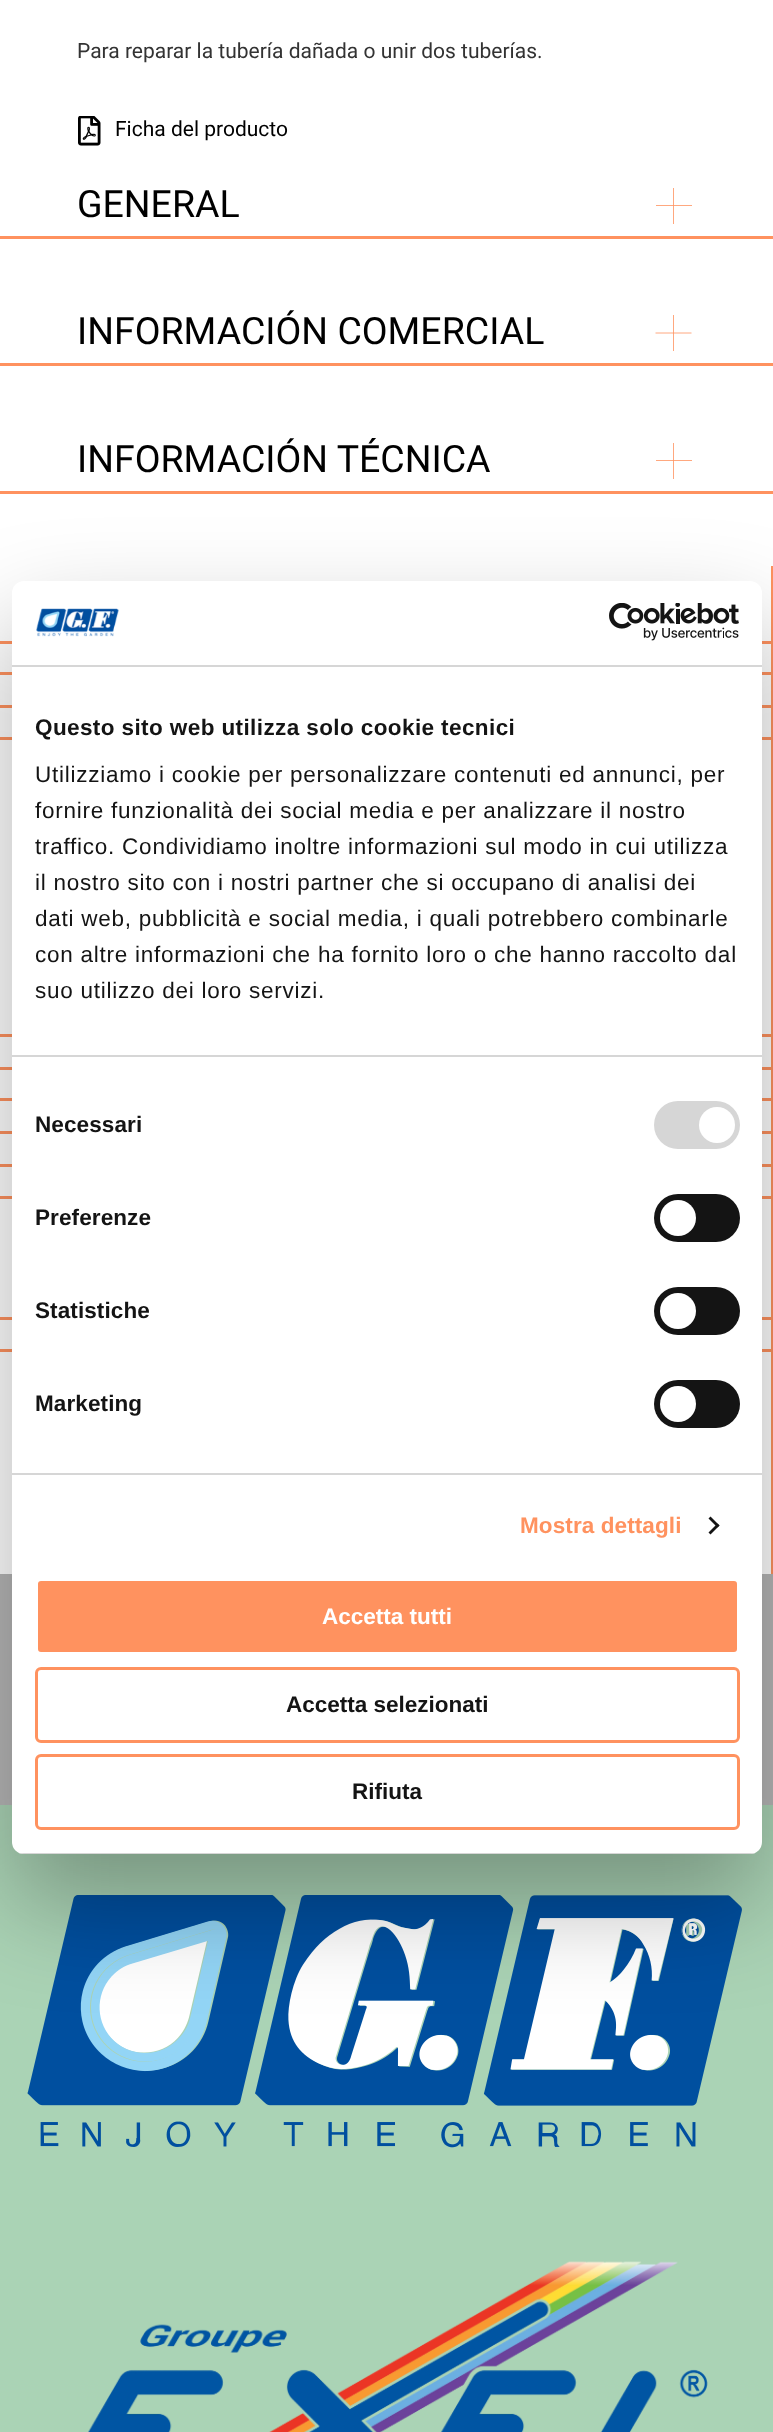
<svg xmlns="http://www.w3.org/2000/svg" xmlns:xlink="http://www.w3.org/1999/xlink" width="773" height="2432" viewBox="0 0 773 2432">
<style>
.cls-1{font:21px Roboto;fill:#333333}
.cls-2{font:21px Roboto;fill:#000000}
.cls-3{font:37.5px Roboto;fill:#000000}
.cls-4{font:bold 22.5px Liberation Sans;letter-spacing:0.4px;fill:#141414}
.cls-5{font:22.5px Liberation Sans;letter-spacing:0.75px;fill:#141414}
.cls-6{font:bold 22.5px Liberation Sans;letter-spacing:0.1px;fill:#141414}
.cls-7{font:bold 22.5px Liberation Sans;letter-spacing:0.1px;fill:#ff925f}
.cls-8{font:bold 22.5px Liberation Sans;fill:#ffffff}
.cls-9{font:bold 22.5px Liberation Sans;fill:#141414}
</style>
<defs>
<clipPath id="clip1"><rect x="12" y="581" width="750" height="1273" rx="12"/></clipPath>
</defs>
<rect width="100%" height="100%" fill="#ffffff"/>
<rect fill="#ffa87f" x="656" y="460" width="36" height="1"/>
<rect fill="#ffa87f" x="656" y="205" width="36" height="1"/>
<image xlink:href="image0.png" x="78" y="116" width="23" height="30"/>
<rect fill="#ffa87f" x="673" y="188" width="1" height="36"/>
<rect fill="#ff9665" x="673" y="205" width="1" height="1"/>
<rect fill="#ff925f" x="0" y="236" width="773" height="3"/>
<rect fill="#ffa87f" x="673" y="315" width="1" height="36"/>
<path fill="none" stroke="#ff925f" stroke-width="0.8" d="M655.5 333H691.5"/>
<rect fill="#ff925f" x="0" y="363" width="773" height="3"/>
<rect fill="#ffa87f" x="673" y="443" width="1" height="36"/>
<rect fill="#ff9665" x="673" y="460" width="1" height="1"/>
<rect fill="#ff925f" x="0" y="491" width="773" height="3"/>
<rect fill="#ff925f" x="771" y="566" width="2" height="1008"/>
<rect fill="#ff925f" x="0" y="641" width="771" height="3"/>
<rect fill="#ff925f" x="0" y="672" width="771" height="3"/>
<rect fill="#ff925f" x="0" y="705" width="771" height="3"/>
<rect fill="#ff925f" x="0" y="737" width="771" height="3"/>
<rect fill="#ff925f" x="0" y="1034" width="771" height="3"/>
<rect fill="#ff925f" x="0" y="1067" width="771" height="3"/>
<rect fill="#ff925f" x="0" y="1098" width="771" height="3"/>
<rect fill="#ff925f" x="0" y="1131" width="771" height="3"/>
<rect fill="#ff925f" x="0" y="1164" width="771" height="3"/>
<rect fill="#ff925f" x="0" y="1196" width="771" height="3"/>
<rect fill="#ff925f" x="0" y="1317" width="771" height="3"/>
<rect fill="#ff925f" x="0" y="1349" width="771" height="3"/>
<rect fill="#b6b6b6" x="0" y="1574" width="773" height="231"/>
<rect fill="#aad3b5" x="0" y="1805" width="773" height="627"/>
<image xlink:href="image3.png" x="27" y="1895" width="715" height="253"/>
<rect fill="#000000" fill-opacity="0.3" filter="blur(51px)" x="12" y="629" width="750" height="1273" rx="12"/>
<rect fill="#ffffff" x="12" y="581" width="750" height="1273" rx="12"/>
<rect fill="#d6d6d6" x="12" y="665" width="750" height="2"/>
<image xlink:href="image1.png" x="36" y="608" width="83" height="29"/>
<image xlink:href="image2.png" x="609" y="603" width="130" height="38"/>
<rect fill="#d6d6d6" x="12" y="1055" width="750" height="2"/>
<rect fill="#d6d6d6" x="12" y="1473" width="750" height="2"/>
<rect fill="#d6d6d6" x="654" y="1101" width="86" height="48" rx="24"/>
<circle fill="#ffffff" cx="717" cy="1125" r="18"/>
<rect fill="#141414" x="654" y="1194" width="86" height="48" rx="24"/>
<circle fill="#ffffff" cx="678" cy="1218" r="18"/>
<rect fill="#141414" x="654" y="1287" width="86" height="48" rx="24"/>
<circle fill="#ffffff" cx="678" cy="1311" r="18"/>
<rect fill="#141414" x="654" y="1380" width="86" height="48" rx="24"/>
<circle fill="#ffffff" cx="678" cy="1404" r="18"/>
<path fill="#141414" d="M710.5 1516.5L719.5 1525.5L717.5 1527.5L708.5 1518.5Z"/>
<path fill="#141414" d="M717.5 1523.5L719.5 1525.5L710.5 1534.5L708.5 1532.5Z"/>
<g clip-path="url(#clip1)">
<rect fill="#d6d6d6" x="12" y="1853" width="750" height="1"/>
</g>
<rect fill="#ff925f" stroke="#ffffff" stroke-width="3" x="36.5" y="1579.5" width="702" height="74" rx="4.5"/>
<rect fill="none" stroke="#ff925f" stroke-width="3" x="36.5" y="1668.5" width="702" height="73" rx="4.5"/>
<rect fill="none" stroke="#ff925f" stroke-width="3" x="36.5" y="1755.5" width="702" height="73" rx="4.5"/>
<image xlink:href="image4.png" x="88" y="2261" width="620" height="171"/>
<text class="cls-1" x="77" y="58">Para reparar la tubería dañada o unir dos tuberías.</text>
<text class="cls-2" x="115" y="136">Ficha del producto</text>
<text class="cls-3" x="77" y="217">GENERAL</text>
<text class="cls-3" x="77" y="344">INFORMACIÓN COMERCIAL</text>
<text class="cls-3" x="77" y="472">INFORMACIÓN TÉCNICA</text>
<text class="cls-4" x="35" y="735">Questo sito web utilizza solo cookie tecnici</text>
<text class="cls-5"><tspan x="35" y="782">Utilizziamo i cookie per personalizzare contenuti ed annunci, per</tspan><tspan x="35" y="818">fornire funzionalità dei social media e per analizzare il nostro</tspan><tspan x="35" y="854">traffico. Condividiamo inoltre informazioni sul modo in cui utilizza</tspan><tspan x="35" y="890">il nostro sito con i nostri partner che si occupano di analisi dei</tspan><tspan x="35" y="926">dati web, pubblicità e social media, i quali potrebbero combinarle</tspan><tspan x="35" y="962">con altre informazioni che ha fornito loro o che hanno raccolto dal</tspan><tspan x="35" y="998">suo utilizzo dei loro servizi.</tspan></text>
<text class="cls-6" x="35" y="1132">Necessari</text>
<text class="cls-6" x="35" y="1225">Preferenze</text>
<text class="cls-6" x="35" y="1318">Statistiche</text>
<text class="cls-6" x="35" y="1411">Marketing</text>
<text class="cls-7" x="520" y="1533">Mostra dettagli</text>
<text class="cls-8" x="322" y="1624">Accetta tutti</text>
<text class="cls-9" x="286" y="1712">Accetta selezionati</text>
<text class="cls-9" x="352" y="1799">Rifiuta</text>
</svg>
